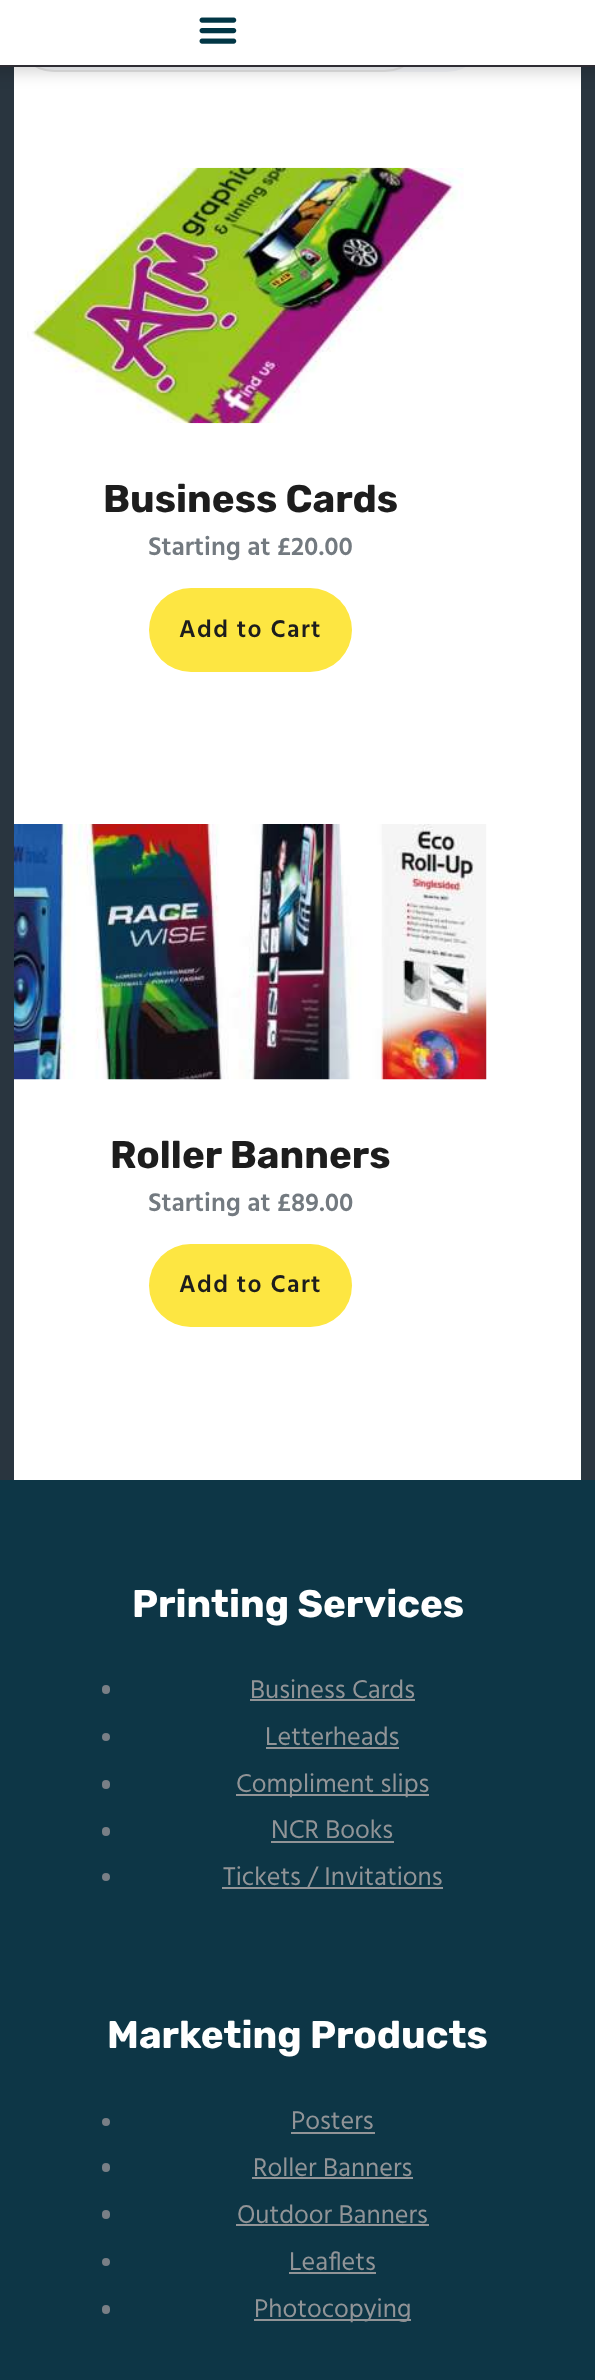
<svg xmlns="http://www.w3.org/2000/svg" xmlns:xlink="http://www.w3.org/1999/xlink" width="595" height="2380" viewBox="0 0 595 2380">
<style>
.cls-1{font:bold 38.5px Rubik;fill:#1d1d1d}
.cls-2{font:600 26.25px Hind;fill:#737a80}
.cls-3{font:600 24.75px Hind;letter-spacing:1.4px;fill:#1d1d1d}
.cls-4{font:bold 38.5px Rubik;fill:#ffffff}
.cls-5{font:26.25px Hind;fill:#919497}
</style>
<rect width="100%" height="100%" fill="#29353f"/>
<rect fill="#ffffff" x="14" y="67" width="567" height="1413"/>
<rect fill="#f4f6fa" x="14" y="-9" width="473" height="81" rx="40.5"/>
<rect fill="#f4f6fa" stroke="#e5e5e5" stroke-width="2" x="15" y="-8" width="409" height="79" rx="39.5"/>
<rect fill="#000000" fill-opacity="0.2" filter="blur(9px)" x="-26" y="4" width="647" height="66"/>
<rect fill="#ffffff" x="0" y="0" width="595" height="65"/>
<rect fill="#2e2c33" x="0" y="65" width="595" height="2"/>
<image xlink:href="image0.png" x="199" y="17" width="38" height="27"/>
<image xlink:href="image1.png" x="27" y="167" width="437" height="257"/>
<rect fill="#fde642" x="149" y="588" width="203" height="84" rx="42"/>
<image xlink:href="image2.png" x="14" y="824" width="473" height="256"/>
<rect fill="#fde642" x="149" y="1244" width="203" height="83" rx="41.5"/>
<rect fill="#0d3646" x="0" y="1480" width="595" height="900"/>
<rect fill="#787f86" x="102" y="1685" width="8" height="9" rx="4"/>
<rect fill="#919497" x="250" y="1699" width="165" height="2"/>
<circle fill="#787f86" cx="106" cy="1737" r="4"/>
<rect fill="#919497" x="266" y="1747" width="133" height="2"/>
<rect fill="#787f86" x="102" y="1780" width="8" height="9" rx="4"/>
<rect fill="#919497" x="236" y="1794" width="193" height="2"/>
<rect fill="#787f86" x="102" y="1827" width="8" height="9" rx="4"/>
<rect fill="#919497" x="271" y="1841" width="123" height="2"/>
<circle fill="#787f86" cx="106" cy="1877" r="4"/>
<rect fill="#919497" x="222" y="1887" width="221" height="2"/>
<circle fill="#787f86" cx="106" cy="2122" r="4"/>
<rect fill="#919497" x="291" y="2132" width="84" height="2"/>
<rect fill="#787f86" x="102" y="2163" width="8" height="9" rx="4"/>
<rect fill="#919497" x="252" y="2177" width="161" height="2"/>
<rect fill="#787f86" x="102" y="2210" width="8" height="9" rx="4"/>
<rect fill="#919497" x="236" y="2224" width="193" height="2"/>
<circle fill="#787f86" cx="106" cy="2262" r="4"/>
<rect fill="#919497" x="289" y="2272" width="87" height="2"/>
<rect fill="#787f86" x="102" y="2305" width="8" height="9" rx="4"/>
<rect fill="#919497" x="254" y="2319" width="157" height="2"/>
<text class="cls-1" x="103" y="512">Business Cards</text>
<text class="cls-2" x="148" y="555">Starting at £20.00</text>
<text class="cls-3" x="179" y="637">Add to Cart</text>
<text class="cls-1" x="110" y="1168">Roller Banners</text>
<text class="cls-2" x="148" y="1211">Starting at £89.00</text>
<text class="cls-3" x="179" y="1292">Add to Cart</text>
<text class="cls-4" x="132" y="1617">Printing Services</text>
<text class="cls-5" x="250" y="1698">Business Cards</text>
<text class="cls-5" x="265" y="1745">Letterheads</text>
<text class="cls-5" x="236" y="1792">Compliment slips</text>
<text class="cls-5" x="271" y="1838">NCR Books</text>
<text class="cls-5" x="223" y="1885">Tickets / Invitations</text>
<text class="cls-4" x="107" y="2048">Marketing Products</text>
<text class="cls-5" x="291" y="2129">Posters</text>
<text class="cls-5" x="253" y="2176">Roller Banners</text>
<text class="cls-5" x="237" y="2223">Outdoor Banners</text>
<text class="cls-5" x="289" y="2270">Leaflets</text>
<text class="cls-5" x="254" y="2317">Photocopying</text>
</svg>
